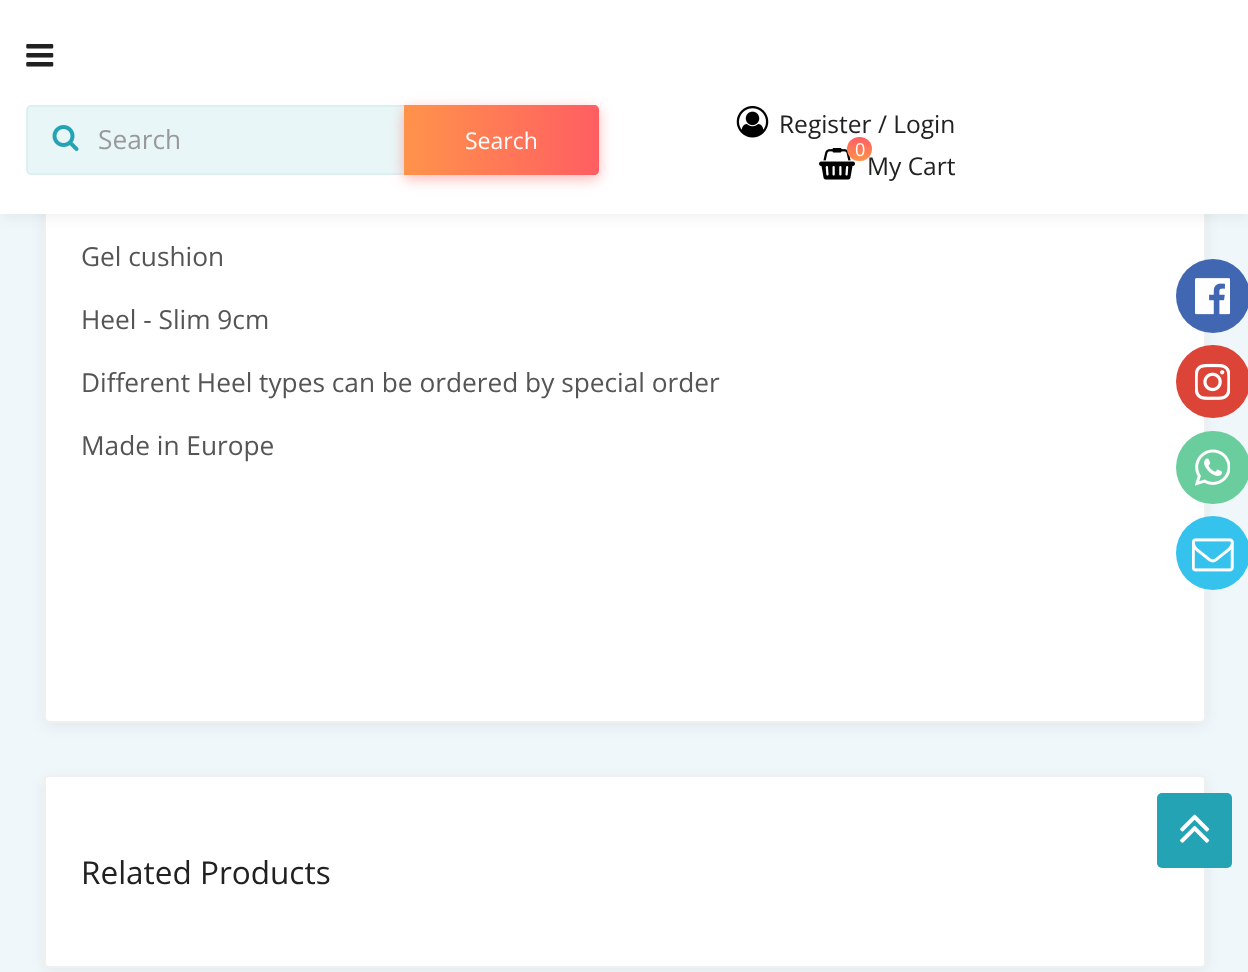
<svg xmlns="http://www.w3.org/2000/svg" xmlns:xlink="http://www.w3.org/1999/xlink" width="1248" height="972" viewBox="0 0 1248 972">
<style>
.cls-1{font:26.25px Open Sans;fill:#999999}
.cls-2{font:23px Open Sans;fill:#ffffff}
.cls-3{font:24.5px Open Sans;fill:#212121}
.cls-4{font:18px Open Sans;fill:#ffffff}
.cls-5{font:26.25px Open Sans;fill:#555555}
.cls-6{font:31.5px Open Sans;fill:#212121}
</style>
<defs>
<linearGradient id="g1" gradientUnits="userSpaceOnUse" x1="404" y1="140" x2="599" y2="140"><stop offset="0" stop-color="#ff934b"/><stop offset="1" stop-color="#ff5e62"/></linearGradient>
<linearGradient id="g2" gradientUnits="userSpaceOnUse" x1="859" y1="161" x2="859" y2="137"><stop offset="0" stop-color="#ff934b"/><stop offset="1" stop-color="#ff5e62"/></linearGradient>
</defs>
<rect width="100%" height="100%" fill="#eff7fa"/>
<rect fill="#000000" fill-opacity="0.06" filter="blur(7px)" x="44" y="-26" width="1162" height="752" rx="5"/>
<rect fill="#ffffff" x="46" y="-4" width="1158" height="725" rx="4"/>
<rect fill="none" stroke="#f0f0f0" stroke-width="2" x="45" y="-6" width="1160" height="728" rx="4"/>
<rect fill="#000000" fill-opacity="0.06" filter="blur(7px)" x="0" y="4" width="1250" height="213"/>
<rect fill="#ffffff" x="0" y="0" width="1248" height="214"/>
<image xlink:href="image0.png" x="26" y="44" width="28" height="23"/>
<rect fill="#e9f6f7" stroke="#dbf0f2" stroke-width="2" x="27" y="106" width="565" height="68" rx="4"/>
<image xlink:href="image1.png" x="52" y="125" width="27" height="26"/>
<rect fill="#ff6162" fill-opacity="0.46" filter="blur(7px)" x="404" y="109" width="195" height="70" rx="5"/>
<path fill="url(#g1)" d="M404 105H594C597 105 599 107 599 110V170C599 173 597 175 594 175H404Z"/>
<image xlink:href="image2.png" x="736" y="106" width="33" height="32"/>
<image xlink:href="image3.png" x="819" y="148" width="36" height="32"/>
<rect fill="#000000" fill-opacity="0.06" filter="blur(7px)" x="44" y="779" width="1162" height="192" rx="5"/>
<rect fill="#ffffff" stroke="#f0f0f0" stroke-width="2" x="45" y="776" width="1160" height="191" rx="4"/>
<circle fill="#4267b2" cx="1213" cy="296" r="37"/>
<image xlink:href="image4.png" x="1195" y="278" width="35" height="37"/>
<rect fill="#db4437" x="1176" y="345" width="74" height="73" rx="36.5"/>
<image xlink:href="image5.png" x="1195" y="363" width="35" height="37"/>
<rect fill="#69cd9d" x="1176" y="431" width="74" height="73" rx="36.5"/>
<image xlink:href="image6.png" x="1195" y="449" width="35" height="37"/>
<circle fill="#35c2ed" cx="1213" cy="553" r="37"/>
<image xlink:href="image7.png" x="1192" y="538" width="42" height="34"/>
<rect fill="#24a3b5" x="1157" y="793" width="75" height="75" rx="5"/>
<image xlink:href="image8.png" x="1180" y="814" width="30" height="29"/>
<text class="cls-1" x="98" y="149">Search</text>
<text class="cls-2" x="465" y="149">Search</text>
<text class="cls-3" x="779" y="133">Register / Login</text>
<text class="cls-3" x="867" y="175">My Cart</text>
<rect fill="url(#g2)" x="847" y="137" width="25" height="24" rx="12"/>
<text class="cls-4" x="855" y="156">0</text>
<text class="cls-5" x="81" y="266">Gel cushion</text>
<text class="cls-5" x="81" y="329">Heel - Slim 9cm</text>
<text class="cls-5" x="81" y="392">Different Heel types can be ordered by special order</text>
<text class="cls-5" x="81" y="455">Made in Europe</text>
<text class="cls-6" x="81" y="884">Related Products</text>
</svg>
